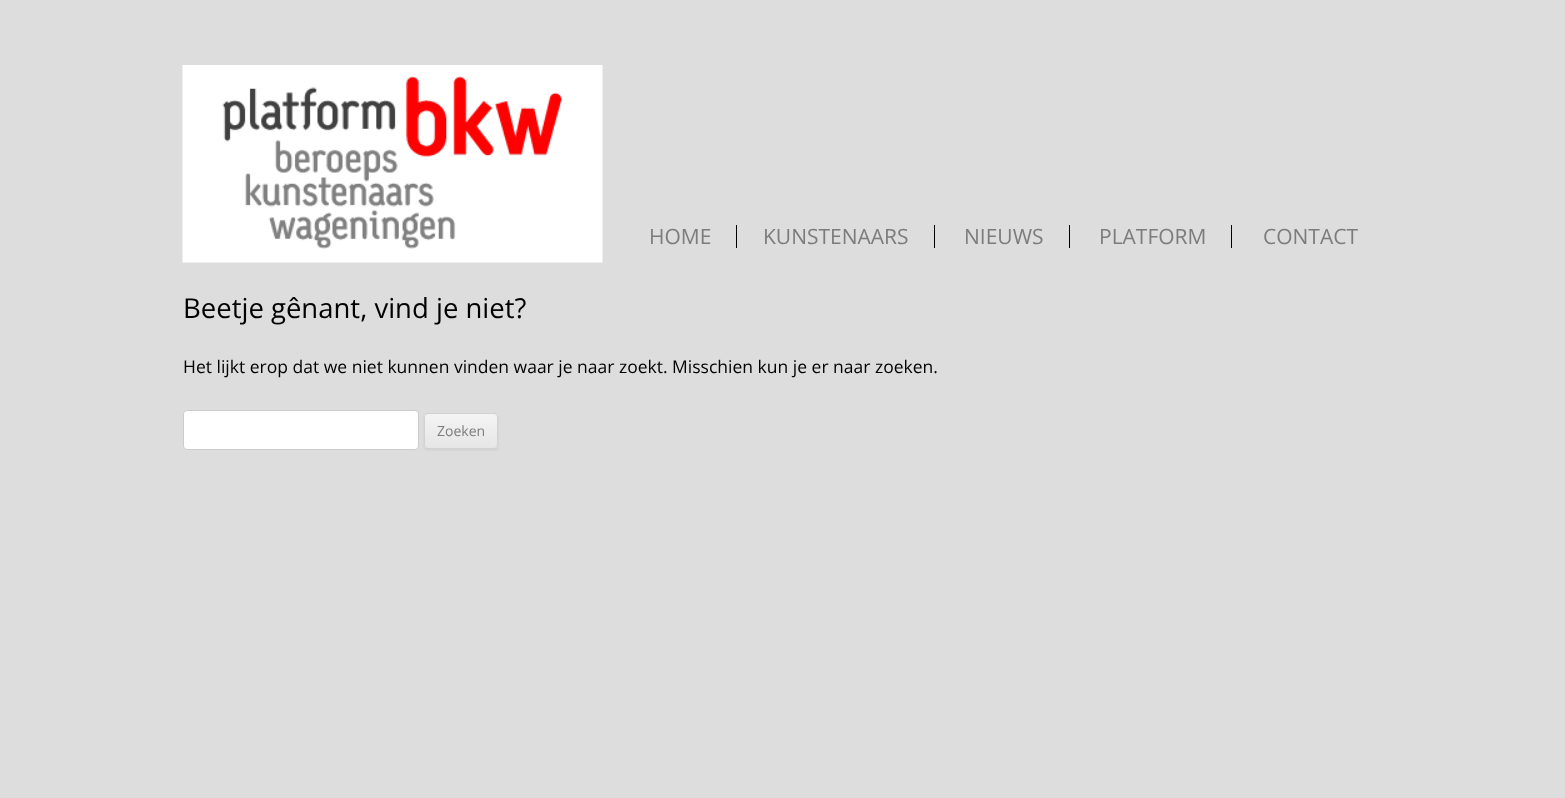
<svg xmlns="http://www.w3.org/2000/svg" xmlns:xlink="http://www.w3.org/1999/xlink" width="1565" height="798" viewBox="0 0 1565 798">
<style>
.cls-1{font:21px Open Sans;fill:#7c7c7c}
.cls-2{font:27.5px Open Sans;fill:#000000}
.cls-3{font:17.5px Open Sans;fill:#000000}
.cls-4{font:14px Open Sans;fill:#7c7c7c}
</style>
<defs>
<clipPath id="clip1"><rect x="424" y="413" width="74" height="36" rx="4"/></clipPath>
<linearGradient id="g1" gradientUnits="userSpaceOnUse" x1="461" y1="414" x2="461" y2="448"><stop offset="0" stop-color="#f4f4f4"/><stop offset="1" stop-color="#e6e6e6"/></linearGradient>
</defs>
<rect width="100%" height="100%" fill="#dddddd"/>
<image xlink:href="image0.png" x="182" y="65" width="421" height="198"/>
<rect fill="#000000" x="736" y="225" width="1" height="23"/>
<rect fill="#000000" x="934" y="225" width="1" height="23"/>
<rect fill="#000000" x="1069" y="225" width="1" height="23"/>
<rect fill="#000000" x="1231" y="225" width="1" height="23"/>
<rect fill="#ffffff" stroke="#cccccc" x="183.5" y="410.5" width="235" height="39" rx="3.5"/>
<rect fill="#404040" fill-opacity="0.1" filter="blur(1px)" x="424" y="414" width="74" height="36" rx="4"/>
<g clip-path="url(#clip1)">
<rect fill="url(#g1)" x="424" y="414" width="74" height="34"/>
</g>
<rect fill="none" stroke="#d2d2d2" x="424.5" y="413.5" width="73" height="35" rx="3.5"/>
<text class="cls-1" x="649" y="244">HOME</text>
<text class="cls-1" x="763" y="244">KUNSTENAARS</text>
<text class="cls-1" x="964" y="244">NIEUWS</text>
<text class="cls-1" x="1099" y="244">PLATFORM</text>
<text class="cls-1" x="1263" y="244">CONTACT</text>
<text class="cls-2" x="183" y="318">Beetje gênant, vind je niet?</text>
<text class="cls-3" x="183" y="373">Het lijkt erop dat we niet kunnen vinden waar je naar zoekt. Misschien kun je er naar zoeken.</text>
<text class="cls-4" x="437" y="436">Zoeken</text>
</svg>
